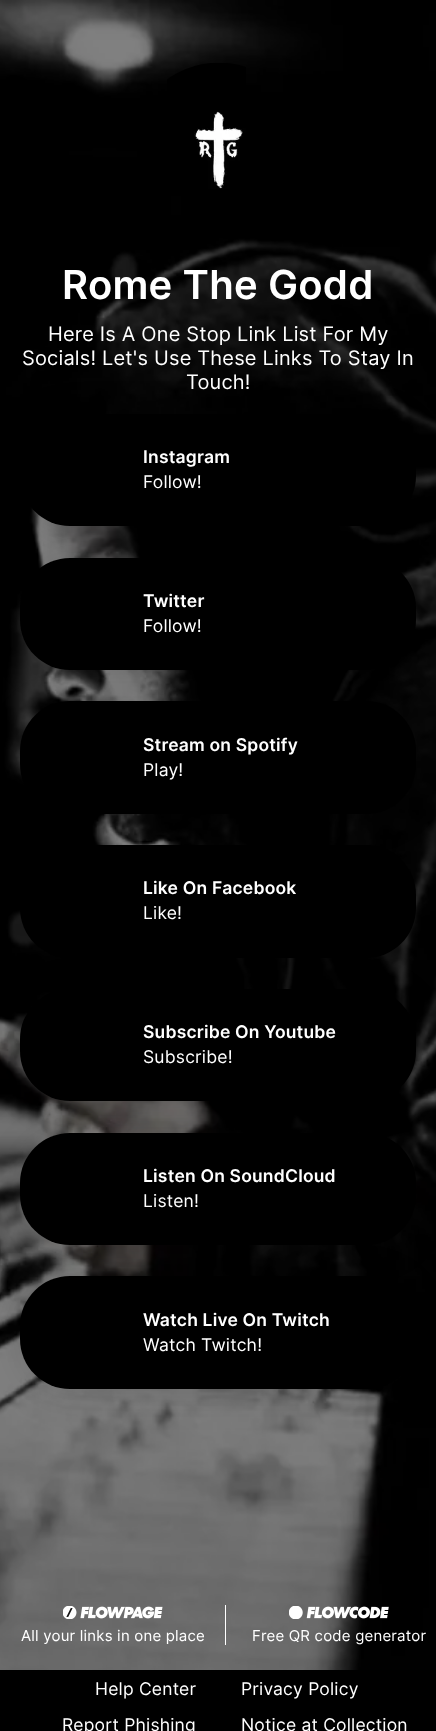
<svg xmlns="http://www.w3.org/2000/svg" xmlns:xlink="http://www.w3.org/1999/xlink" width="436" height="1731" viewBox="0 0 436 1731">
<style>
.cls-1{font:600 40px Inter;letter-spacing:0.2px;fill:#ffffff}
.cls-2{font:20px Inter;letter-spacing:0.2px;fill:#ffffff}
.cls-3{font:600 17.5px Inter;letter-spacing:0.2px;fill:#ffffff}
.cls-4{font:17.5px Inter;letter-spacing:0.2px;fill:#ffffff}
.cls-5{font:15px Inter;letter-spacing:0.2px;fill:#ffffff}
</style>
<rect width="100%" height="100%" fill="#000000"/>
<image xlink:href="image0.png" x="0" y="0" width="436" height="1670"/>
<image xlink:href="image1.png" x="167" y="63" width="79" height="126"/>
<rect fill="#000000" fill-opacity="0.1" filter="blur(19px)" x="20" y="418" width="396" height="112" rx="50"/>
<rect fill="#000000" x="20" y="414" width="396" height="112" rx="50"/>
<rect fill="#000000" fill-opacity="0.1" filter="blur(19px)" x="20" y="561" width="396" height="113" rx="50"/>
<rect fill="#000000" x="20" y="558" width="396" height="112" rx="50"/>
<rect fill="#000000" fill-opacity="0.1" filter="blur(19px)" x="20" y="705" width="396" height="113" rx="50"/>
<rect fill="#000000" x="20" y="701" width="396" height="113" rx="50"/>
<rect fill="#000000" x="20" y="845" width="396" height="113" rx="50"/>
<rect fill="#000000" fill-opacity="0.1" filter="blur(19px)" x="20" y="993" width="396" height="112" rx="50"/>
<rect fill="#000000" x="20" y="989" width="396" height="112" rx="50"/>
<rect fill="#000000" fill-opacity="0.1" filter="blur(19px)" x="20" y="1136" width="396" height="113" rx="50"/>
<rect fill="#000000" x="20" y="1133" width="396" height="112" rx="50"/>
<rect fill="#000000" fill-opacity="0.1" filter="blur(19px)" x="20" y="1280" width="396" height="113" rx="50"/>
<rect fill="#000000" x="20" y="1276" width="396" height="113" rx="50"/>
<image xlink:href="image2.png" x="63" y="1606" width="100" height="13"/>
<rect fill="#ffffff" x="225" y="1605" width="1" height="40"/>
<image xlink:href="image3.png" x="289" y="1606" width="100" height="13"/>
<text class="cls-1" x="62" y="299">Rome The Godd</text>
<text class="cls-2" x="48" y="341">Here Is A One Stop Link List For My</text>
<text class="cls-2" x="22" y="365">Socials! Let's Use These Links To Stay In</text>
<text class="cls-2" x="186" y="389">Touch!</text>
<text class="cls-3" x="143" y="463">Instagram</text>
<text class="cls-4" x="143" y="488">Follow!</text>
<text class="cls-3" x="143" y="607">Twitter</text>
<text class="cls-4" x="143" y="632">Follow!</text>
<text class="cls-3" x="143" y="751">Stream on Spotify</text>
<text class="cls-4" x="143" y="776">Play!</text>
<text class="cls-3" x="143" y="894">Like On Facebook</text>
<text class="cls-4" x="143" y="919">Like!</text>
<text class="cls-3" x="143" y="1038">Subscribe On Youtube</text>
<text class="cls-4" x="143" y="1063">Subscribe!</text>
<text class="cls-3" x="143" y="1182">Listen On SoundCloud</text>
<text class="cls-4" x="143" y="1207">Listen!</text>
<text class="cls-3" x="143" y="1326">Watch Live On Twitch</text>
<text class="cls-4" x="143" y="1351">Watch Twitch!</text>
<text class="cls-5" x="21" y="1641">All your links in one place</text>
<text class="cls-5" x="252" y="1641">Free QR code generator</text>
<text class="cls-4" x="95" y="1695">Help Center</text>
<text class="cls-4" x="62" y="1731">Report Phishing</text>
<text class="cls-4" x="241" y="1695">Privacy Policy</text>
<text class="cls-4" x="241" y="1731">Notice at Collection</text>
</svg>
